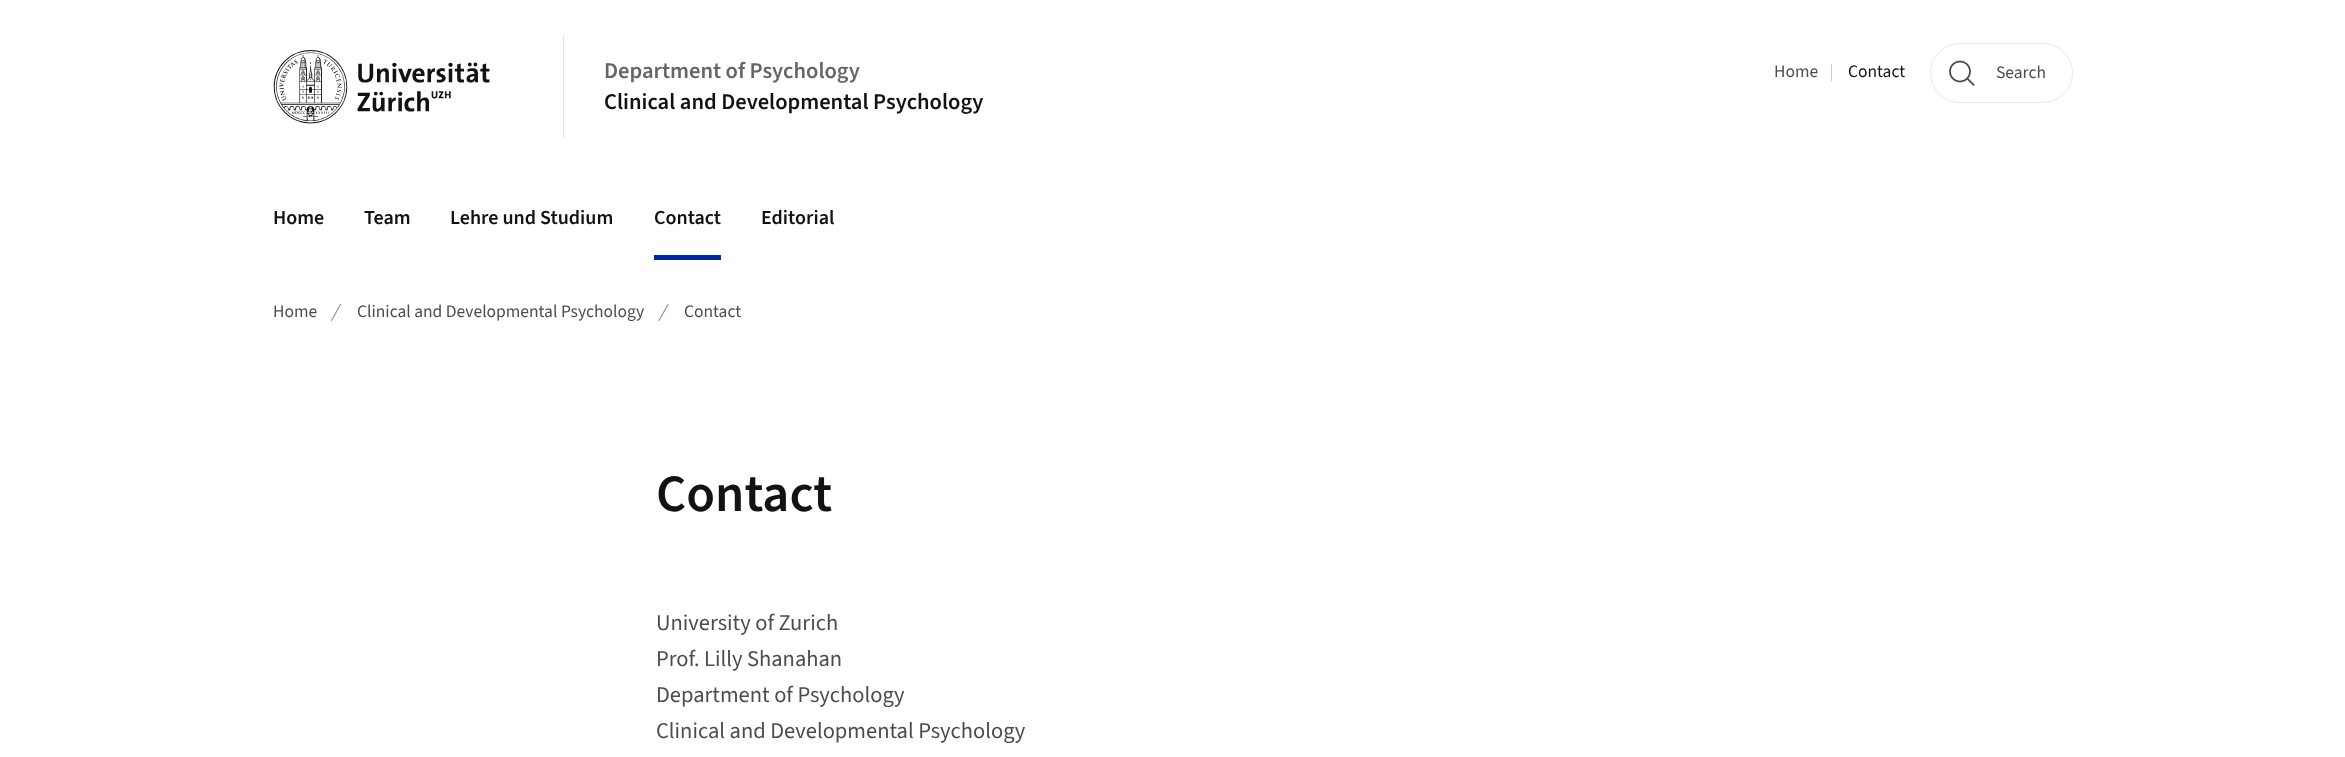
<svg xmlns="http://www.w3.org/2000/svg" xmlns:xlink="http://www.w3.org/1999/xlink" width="2345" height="757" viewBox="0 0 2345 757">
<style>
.cls-1{font:600 22.5px 'Source Sans 3';fill:#666666}
.cls-2{font:600 22.5px 'Source Sans 3';fill:#121212}
.cls-3{font:17.5px 'Source Sans 3';fill:#4c4c4c}
.cls-4{font:17.5px 'Source Sans 3';fill:#121212}
.cls-5{font:600 20px 'Source Sans 3';fill:#121212}
.cls-6{font:600 52.5px 'Source Sans 3';fill:#121212}
.cls-7{font:22.5px 'Source Sans 3';fill:#4c4c4c}
</style>
<rect width="100%" height="100%" fill="#ffffff"/>
<image xlink:href="image0.png" x="273" y="50" width="217" height="74"/>
<rect fill="#e3e3e3" x="563" y="35" width="1" height="103"/>
<rect fill="#d0d0d0" x="1831" y="64" width="1" height="17"/>
<rect fill="none" stroke="#e9e9e9" x="1930.5" y="43.5" width="142" height="59" rx="29.5"/>
<image xlink:href="image1.png" x="1949" y="60" width="26" height="26"/>
<rect fill="#0028a5" x="654" y="255" width="67" height="5"/>
<path fill="none" stroke="#949494" stroke-width="1.2" stroke-linecap="round" d="M331.5 320.5L340.5 304.5"/>
<path fill="none" stroke="#949494" stroke-width="1.2" stroke-linecap="round" d="M659 320.5L668 304.5"/>
<text class="cls-1" x="604" y="78">Department of Psychology</text>
<text class="cls-2" x="604" y="109">Clinical and Developmental Psychology</text>
<text class="cls-3" x="1774" y="77">Home</text>
<text class="cls-4" x="1848" y="77">Contact</text>
<text class="cls-3" x="1996" y="78">Search</text>
<text class="cls-5" x="273" y="224">Home</text>
<text class="cls-5" x="364" y="224">Team</text>
<text class="cls-5" x="450" y="224">Lehre und Studium</text>
<text class="cls-5" x="654" y="224">Contact</text>
<text class="cls-5" x="761" y="224">Editorial</text>
<text class="cls-3" x="273" y="317">Home</text>
<text class="cls-3" x="357" y="317">Clinical and Developmental Psychology</text>
<text class="cls-3" x="684" y="317">Contact</text>
<text class="cls-6" x="656" y="511">Contact</text>
<text class="cls-7"><tspan x="656" y="630">University of Zurich</tspan><tspan x="656" y="666">Prof. Lilly Shanahan</tspan><tspan x="656" y="702">Department of Psychology</tspan><tspan x="656" y="738">Clinical and Developmental Psychology</tspan></text>
</svg>
